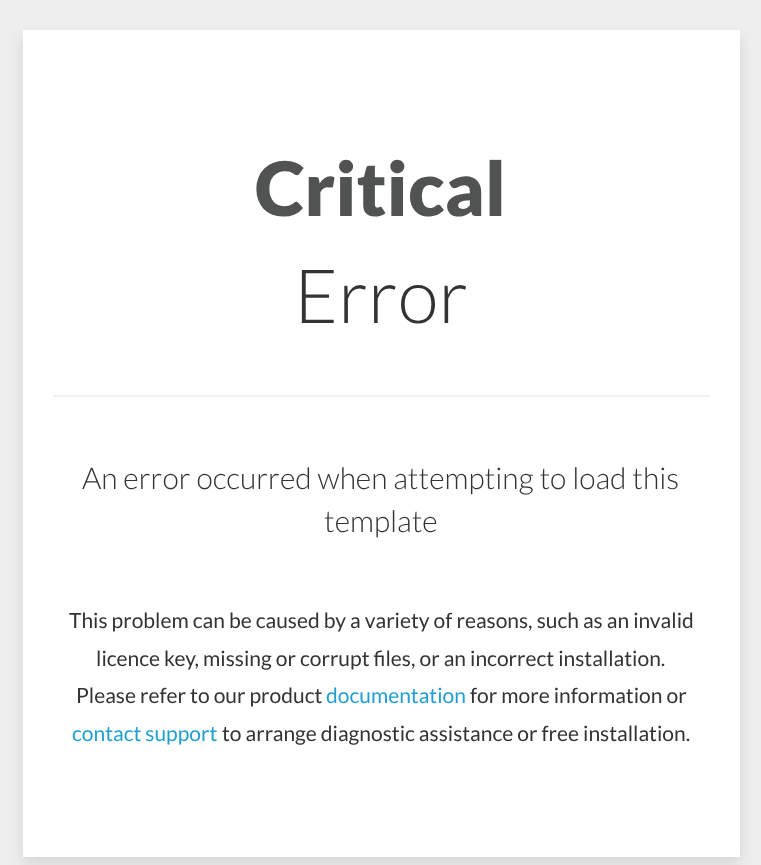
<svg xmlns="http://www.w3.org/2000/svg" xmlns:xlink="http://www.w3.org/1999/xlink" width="761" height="865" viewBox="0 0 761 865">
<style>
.cls-1{font:900 75px Lato;fill:#515252}
.cls-2{font:300 75px Lato;fill:#333333}
.cls-3{font:300 30px Lato;fill:#333333}
.cls-4{font:21px Lato;fill:#333333}
.cls-5{font:21px Lato;fill:#219fd1}
</style>
<rect width="100%" height="100%" fill="#eeeeee"/>
<rect fill="#000000" fill-opacity="0.1" filter="blur(7.5px)" x="23" y="38" width="717" height="826"/>
<rect fill="#ffffff" x="23" y="30" width="717" height="827"/>
<rect fill="#f1f1f1" x="53" y="395" width="657" height="2"/>
<text class="cls-1" x="255" y="216">Critical</text>
<text class="cls-2" x="294" y="323">Error</text>
<text class="cls-3" x="82" y="489">An error occurred when attempting to load this</text>
<text class="cls-3" x="324" y="532">template</text>
<text class="cls-4" x="69" y="628">This problem can be caused by a variety of reasons, such as an invalid</text>
<text class="cls-4" x="96" y="666">licence key, missing or corrupt files, or an incorrect installation.</text>
<text class="cls-4" x="76" y="703">Please refer to our product</text>
<text class="cls-5" x="326" y="703">documentation</text>
<text class="cls-4" x="470" y="703">for more information or</text>
<text class="cls-5" x="72" y="741">contact support</text>
<text class="cls-4" x="222" y="741">to arrange diagnostic assistance or free installation.</text>
</svg>
